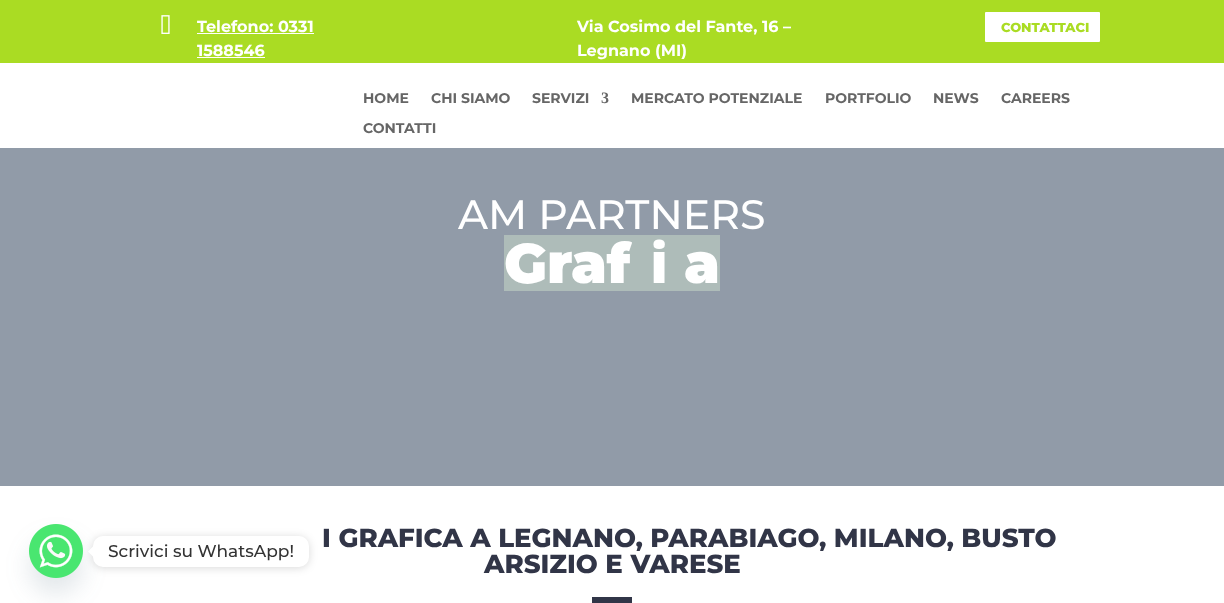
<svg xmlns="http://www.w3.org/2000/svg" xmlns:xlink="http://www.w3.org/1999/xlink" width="1224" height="603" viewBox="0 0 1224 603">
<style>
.cls-1{font:100 16px 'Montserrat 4';fill:#ffffff}
.cls-2{font:100 13px 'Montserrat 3';fill:#aadc23}
.cls-3{font:100 14px 'Montserrat 4';fill:#666666}
.cls-4{font:bold 16px Liberation Serif;fill:#666666}
.cls-5{font:100 41px Montserrat;fill:#ffffff}
.cls-6{font:100 56px 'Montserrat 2';fill:#ffffff}
.cls-7{font:900 56px Noto Sans;fill:#ffffff}
.cls-8{font:100 26px 'Montserrat 3';fill:#313547}
.cls-9{font:100 17px Montserrat;fill:#333333}
</style>
<rect width="100%" height="100%" fill="#ffffff"/>
<rect fill="#919ba8" x="0" y="148" width="1224" height="338"/>
<rect fill="#aadc23" x="0" y="0" width="1224" height="63"/>
<image xlink:href="image0.png" x="161" y="15" width="9" height="19"/>
<rect fill="#ffffff" x="197" y="33" width="117" height="1"/>
<rect fill="#ffffff" x="197" y="57" width="68" height="1"/>
<rect fill="#ffffff" stroke="#aadc23" stroke-width="2" x="984" y="11" width="117" height="32" rx="2"/>
<rect fill="#aebcb9" x="504" y="235" width="216" height="56"/>
<rect fill="#313547" x="592" y="597" width="40" height="6"/>
<rect fill="#49687e" fill-opacity="0.16" filter="blur(12px)" x="29" y="540" width="54" height="54" rx="27"/>
<image xlink:href="image1.png" x="29" y="524" width="54" height="54"/>
<rect fill="#000000" fill-opacity="0.15" filter="blur(4px)" x="93" y="537" width="216" height="31" rx="10"/>
<rect fill="#ffffff" x="93" y="536" width="216" height="31" rx="10"/>
<path fill="#ffffff" d="M93 546.5V556.5L88 551.5Z"/>
<text class="cls-1"><tspan x="197" y="32">Telefono: 0331</tspan><tspan x="197" y="56">1588546</tspan></text>
<text class="cls-1"><tspan x="577" y="32">Via Cosimo del Fante, 16 –</tspan><tspan x="577" y="56">Legnano (MI)</tspan></text>
<text class="cls-2" x="1001" y="32">CONTATTACI</text>
<text class="cls-3" x="363" y="103">HOME</text>
<text class="cls-3" x="431" y="103">CHI SIAMO</text>
<text class="cls-3" x="532" y="103">SERVIZI</text>
<text class="cls-4" x="601" y="103">3</text>
<text class="cls-3" x="631" y="103">MERCATO POTENZIALE</text>
<text class="cls-3" x="825" y="103">PORTFOLIO</text>
<text class="cls-3" x="933" y="103">NEWS</text>
<text class="cls-3" x="1001" y="103">CAREERS</text>
<text class="cls-3" x="363" y="133">CONTATTI</text>
<text class="cls-5" x="458" y="229">AM PARTNERS</text>
<text class="cls-6" x="504" y="283">Gr</text>
<text class="cls-6" x="571" y="283">af</text>
<text class="cls-7" x="650" y="283">i</text>
<text class="cls-6" x="684" y="283">a</text>
<text class="cls-8" x="322" y="547">I GRAFICA A LEGNANO, PARABIAGO, MILANO, BUSTO</text>
<text class="cls-8" x="484" y="573">ARSIZIO E VARESE</text>
<text class="cls-9" x="108" y="557">Scrivici su WhatsApp!</text>
</svg>
